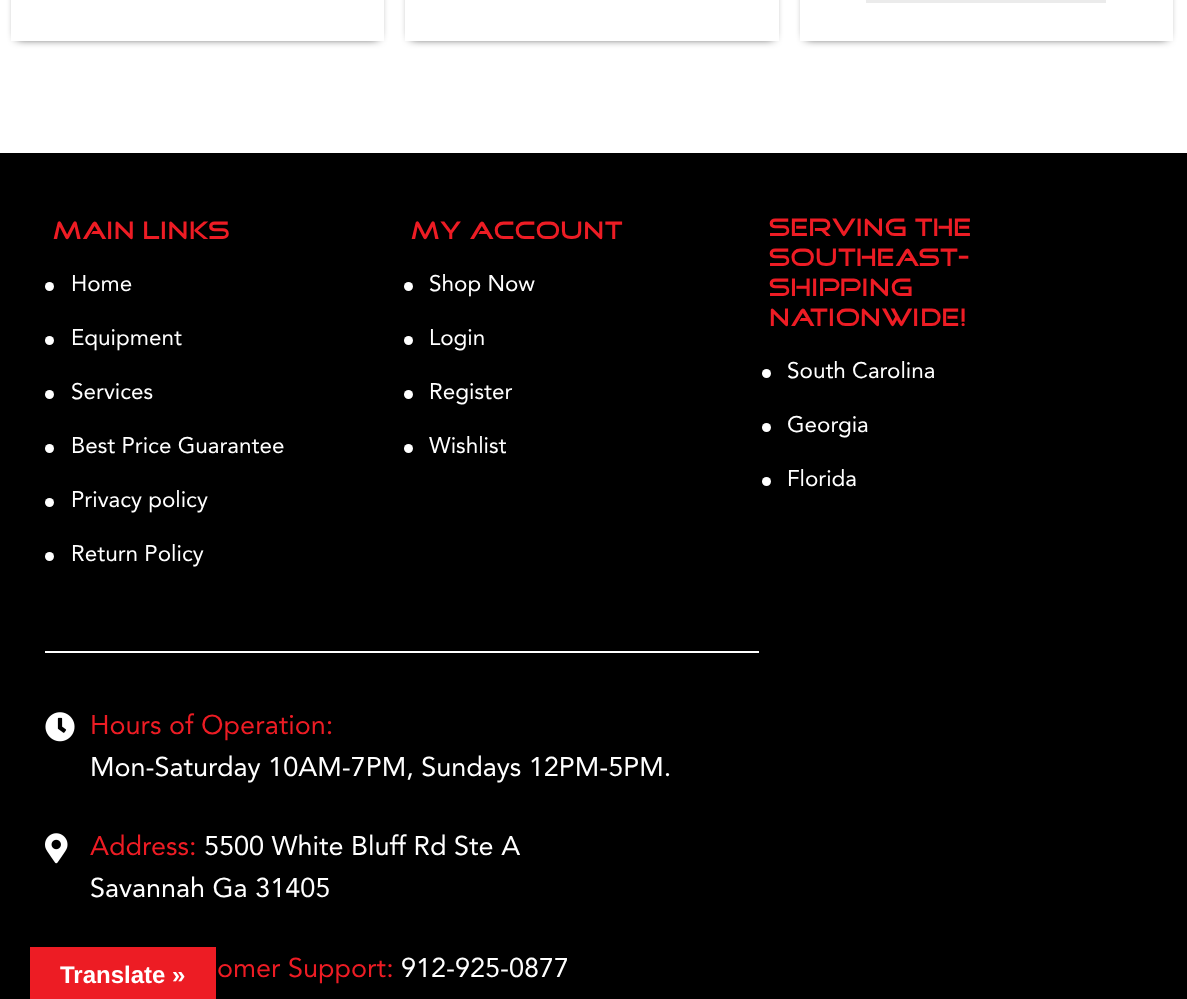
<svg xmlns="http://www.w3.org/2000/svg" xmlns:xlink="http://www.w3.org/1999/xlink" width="1187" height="999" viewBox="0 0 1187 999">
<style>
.cls-1{font:25.5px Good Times;fill:#ed1c24}
.cls-2{font:22.5px Avenir;fill:#ffffff}
.cls-3{font:27px Avenir;fill:#ed1c24}
.cls-4{font:27px Avenir;fill:#ffffff}
.cls-5{font:bold 24px Liberation Sans;fill:#ffffff}
</style>
<rect width="100%" height="100%" fill="#ffffff"/>
<rect fill="#000000" filter="blur(5px)" x="17" y="-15" width="361" height="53"/>
<rect fill="#ffffff" x="11" y="0" width="373" height="41"/>
<rect fill="#000000" filter="blur(5px)" x="411" y="-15" width="362" height="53"/>
<rect fill="#ffffff" x="405" y="0" width="374" height="41"/>
<rect fill="#000000" filter="blur(5px)" x="806" y="-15" width="361" height="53"/>
<rect fill="#ffffff" x="800" y="0" width="373" height="41"/>
<rect fill="#ebebeb" x="866" y="0" width="240" height="3"/>
<rect fill="#000000" x="0" y="153" width="1187" height="846"/>
<circle fill="#ffffff" cx="49.5" cy="286.5" r="4.5"/>
<circle fill="#ffffff" cx="49.5" cy="340.5" r="4.5"/>
<circle fill="#ffffff" cx="49.5" cy="394.5" r="4.5"/>
<circle fill="#ffffff" cx="49.5" cy="448.5" r="4.5"/>
<circle fill="#ffffff" cx="49.5" cy="502.5" r="4.5"/>
<circle fill="#ffffff" cx="49.5" cy="556.5" r="4.5"/>
<circle fill="#ffffff" cx="408.5" cy="286.5" r="4.5"/>
<circle fill="#ffffff" cx="408.5" cy="340.5" r="4.5"/>
<circle fill="#ffffff" cx="408.5" cy="394.5" r="4.5"/>
<circle fill="#ffffff" cx="408.5" cy="448.5" r="4.5"/>
<circle fill="#ffffff" cx="766.5" cy="373.5" r="4.5"/>
<circle fill="#ffffff" cx="766.5" cy="427.5" r="4.5"/>
<circle fill="#ffffff" cx="766.5" cy="481.5" r="4.5"/>
<rect fill="#ffffff" x="45" y="651" width="714" height="2"/>
<image xlink:href="image0.png" x="45" y="712" width="30" height="30"/>
<image xlink:href="image1.png" x="45" y="833" width="23" height="31"/>
<rect fill="#000000" fill-opacity="0.3" filter="blur(7px)" x="30" y="947" width="186" height="52"/>
<rect fill="#ed1c24" x="30" y="947" width="186" height="52"/>
<text class="cls-1" x="53" y="239">Main Links</text>
<text class="cls-2" x="71" y="291">Home</text>
<text class="cls-2" x="71" y="345">Equipment</text>
<text class="cls-2" x="71" y="399">Services</text>
<text class="cls-2" x="71" y="453">Best Price Guarantee</text>
<text class="cls-2" x="71" y="507">Privacy policy</text>
<text class="cls-2" x="71" y="561">Return Policy</text>
<text class="cls-1" x="411" y="239">My Account</text>
<text class="cls-2" x="429" y="291">Shop Now</text>
<text class="cls-2" x="429" y="345">Login</text>
<text class="cls-2" x="429" y="399">Register</text>
<text class="cls-2" x="429" y="453">Wishlist</text>
<text class="cls-1"><tspan x="769" y="236">Serving the</tspan><tspan x="769" y="266">Southeast—</tspan><tspan x="769" y="296">Shipping</tspan><tspan x="769" y="326">Nationwide!</tspan></text>
<text class="cls-2" x="787" y="378">South Carolina</text>
<text class="cls-2" x="787" y="432">Georgia</text>
<text class="cls-2" x="787" y="486">Florida</text>
<text class="cls-3" x="90" y="734">Hours of Operation:</text>
<text class="cls-4" x="90" y="776">Mon-Saturday 10AM-7PM, Sundays 12PM-5PM.</text>
<text class="cls-3" x="90" y="855">Address:</text>
<text class="cls-4" x="204" y="855">5500 White Bluff Rd Ste A</text>
<text class="cls-4" x="90" y="897">Savannah Ga 31405</text>
<text class="cls-3" x="217" y="977">omer Support:</text>
<text class="cls-4" x="401" y="977">912-925-0877</text>
<text class="cls-5" x="60" y="983">Translate »</text>
</svg>
